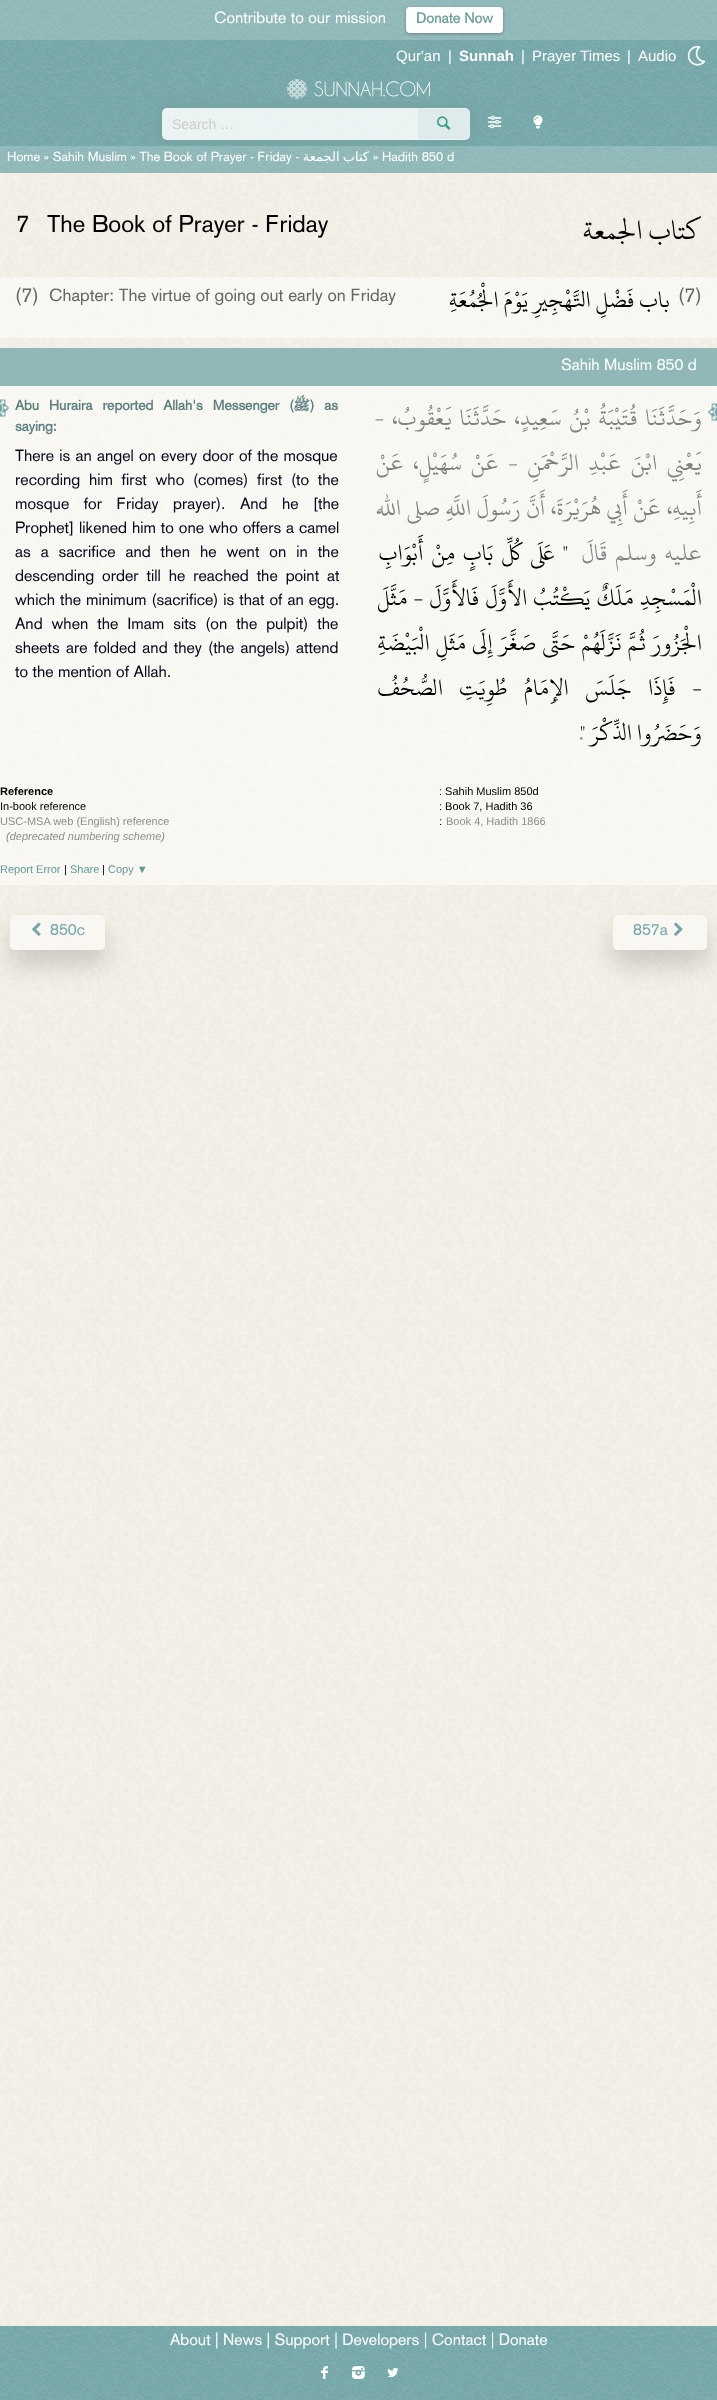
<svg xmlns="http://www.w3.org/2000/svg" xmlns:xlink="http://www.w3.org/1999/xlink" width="717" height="2400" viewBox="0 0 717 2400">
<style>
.cls-1{font:16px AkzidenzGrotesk;fill:#ffffff}
.cls-2{font:bold 14.5px AkzidenzGrotesk;fill:#75a1a1}
.cls-3{font:15px Liberation Sans;fill:#ffffff}
.cls-4{font:bold 15px Liberation Sans;fill:#ffffff}
.cls-5{font:14px Liberation Sans;fill:#cccccc}
.cls-6{font:17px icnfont;fill:#3ba08f}
.cls-7{font:13px AkzidenzGrotesk;fill:#ffffff}
.cls-8{font:13px DejaVu Sans;direction:rtl;fill:#ffffff}
.cls-9{font:24px AkzidenzGrotesk;fill:#000000}
.cls-10{font:30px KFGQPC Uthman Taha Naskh;direction:rtl;fill:#000000}
.cls-11{font:20px AkzidenzGrotesk;fill:#666666}
.cls-12{font:17.3px AkzidenzGrotesk;fill:#666666}
.cls-13{font:25px KFGQPC Uthman Taha Naskh;direction:rtl;fill:#000000}
.cls-14{font:bold 14px AkzidenzGrotesk;fill:#5d8080}
.cls-15{font:bold 14px Lateef;direction:rtl;fill:#5d8080}
.cls-16{font:16px AkzidenzGrotesk;fill:#08081a}
.cls-17{font:25px KFGQPC Uthman Taha Naskh;direction:rtl;fill:#808080}
.cls-18{font:bold 11px Liberation Sans;fill:#000000}
.cls-19{font:11px Liberation Sans;fill:#000000}
.cls-20{font:11px Liberation Sans;fill:#8e8e8e}
.cls-21{font:italic 11px Liberation Sans;fill:#8e8e8e}
.cls-22{font:11px Liberation Sans;fill:#5f9999}
.cls-23{font:15px icnfont;fill:#75a7a8}
.cls-24{font:16px AkzidenzGrotesk;fill:#75a7a8}
</style>
<defs>
<clipPath id="clip1"><path d="M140 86H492V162H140ZM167 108H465C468 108 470 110 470 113V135C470 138 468 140 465 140H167C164 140 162 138 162 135V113C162 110 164 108 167 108Z" clip-rule="evenodd"/></clipPath>
<clipPath id="clip2"><path d="M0 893H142V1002H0ZM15 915H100C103 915 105 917 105 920V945C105 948 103 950 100 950H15C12 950 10 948 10 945V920C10 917 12 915 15 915Z" clip-rule="evenodd"/></clipPath>
<clipPath id="clip3"><path d="M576 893H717V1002H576ZM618 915H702C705 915 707 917 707 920V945C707 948 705 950 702 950H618C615 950 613 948 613 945V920C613 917 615 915 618 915Z" clip-rule="evenodd"/></clipPath>
</defs>
<rect width="100%" height="100%" fill="#ffffff"/>
<image xlink:href="image0.png" x="0" y="173" width="717" height="2153"/>
<image xlink:href="image1.png" x="0" y="0" width="717" height="173"/>
<rect fill="#fbfaf8" fill-opacity="0.2" x="0" y="0" width="717" height="40"/>
<rect fill="#000000" fill-opacity="0.3" filter="blur(1.5px)" x="406" y="8" width="97" height="26" rx="4"/>
<rect fill="#ffffff" x="406" y="7" width="97" height="26" rx="4"/>
<image xlink:href="image2.png" x="687" y="46" width="19" height="20"/>
<image xlink:href="image3.png" x="287" y="79" width="143" height="20"/>
<image xlink:href="image4.png" x="488" y="115" width="14" height="14"/>
<g clip-path="url(#clip1)">
<rect fill="#75a1a1" filter="blur(6px)" x="159" y="105" width="314" height="38" rx="8"/>
</g>
<rect fill="#ffffff" fill-opacity="0.85" x="162" y="108" width="308" height="32" rx="5"/>
<path fill="#deebea" d="M418 109H465C468 109 470 111 470 114V134C470 137 468 139 465 139H418Z"/>
<image xlink:href="image5.png" x="533" y="115" width="10" height="14"/>
<rect fill="#fbfaf8" fill-opacity="0.2" x="0" y="146" width="717" height="27"/>
<rect fill="#ffffff" fill-opacity="0.5" x="0" y="277" width="717" height="61"/>
<rect fill="#ffffff" fill-opacity="0.5" x="0" y="386" width="717" height="499"/>
<rect fill="#90b8b9" x="0" y="348" width="717" height="38"/>
<image xlink:href="image6.png" x="0" y="399" width="9" height="18"/>
<image xlink:href="image7.png" x="708" y="403" width="9" height="18"/>
<g clip-path="url(#clip2)">
<rect fill="#000000" fill-opacity="0.16" filter="blur(12px)" x="10" y="930" width="95" height="35" rx="5"/>
</g>
<rect fill="#ffffff" fill-opacity="0.5" x="10" y="915" width="95" height="35" rx="5"/>
<g clip-path="url(#clip3)">
<rect fill="#000000" fill-opacity="0.16" filter="blur(12px)" x="613" y="930" width="94" height="35" rx="5"/>
</g>
<rect fill="#ffffff" fill-opacity="0.5" x="613" y="915" width="94" height="35" rx="5"/>
<image xlink:href="image8.png" x="0" y="2326" width="717" height="74"/>
<image xlink:href="image9.png" x="321" y="2366" width="7" height="13"/>
<image xlink:href="image10.png" x="352" y="2366" width="13" height="13"/>
<image xlink:href="image11.png" x="387" y="2368" width="12" height="10"/>
<text class="cls-1" x="214" y="23">Contribute to our mission</text>
<text class="cls-2" x="416" y="23">Donate Now</text>
<text class="cls-3" x="396" y="61">Qur'an</text>
<text class="cls-3" x="448" y="61">|</text>
<text class="cls-4" x="459" y="61">Sunnah</text>
<text class="cls-3" x="521" y="61">|</text>
<text class="cls-3" x="532" y="61">Prayer Times</text>
<text class="cls-3" x="627" y="61">|</text>
<text class="cls-3" x="638" y="61">Audio</text>
<text class="cls-5" x="172" y="129">Search …</text>
<text class="cls-6" x="437" y="129">l</text>
<text class="cls-7" x="7" y="161">Home » Sahih Muslim » The Book of Prayer - Friday -</text>
<text class="cls-8" x="369" y="161" word-spacing="-1">كتاب الجمعة</text>
<text class="cls-7" x="373" y="161">» Hadith 850 d</text>
<text class="cls-9" x="16" y="232">7</text>
<text class="cls-9" x="47" y="232">The Book of Prayer - Friday</text>
<text class="cls-10" x="701" y="239">كتاب الجمعة</text>
<text class="cls-11" x="15" y="302">(7)</text>
<text class="cls-12" x="49" y="301">Chapter: The virtue of going out early on Friday</text>
<text class="cls-13" x="670" y="307">باب فَضْلِ التَّهْجِيرِ يَوْمَ الْجُمُعَةِ </text>
<text class="cls-11" x="678" y="302">(7)</text>
<text class="cls-1" x="561" y="370">Sahih Muslim 850 d</text>
<text class="cls-14" x="15" y="410" word-spacing="6">Abu Huraira reported Allah's Messenger (</text>
<text class="cls-15" x="310" y="410">ﷺ</text>
<text class="cls-14" x="310" y="410" word-spacing="6">) as</text>
<text class="cls-14" x="15" y="431">saying:</text>
<text class="cls-16"><tspan x="15" y="461" word-spacing="0.75">There is an angel on every door of the mosque</tspan><tspan x="15" y="485" word-spacing="4.25">recording him first who (comes) first (to the</tspan><tspan x="15" y="509" word-spacing="10">mosque for Friday prayer). And he [the</tspan><tspan x="15" y="533" word-spacing="0.5">Prophet] likened him to one who offers a camel</tspan><tspan x="15" y="557" word-spacing="5.5">as a sacrifice and then he went on in the</tspan><tspan x="15" y="581" word-spacing="3.5">descending order till he reached the point at</tspan><tspan x="15" y="605" word-spacing="0.5">which the minimum (sacrifice) is that of an egg.</tspan><tspan x="15" y="629" word-spacing="4.5">And when the Imam sits (on the pulpit) the</tspan><tspan x="15" y="653" word-spacing="1.75">sheets are folded and they (the angels) attend</tspan><tspan x="15" y="677">to the mention of Allah.</tspan></text>
<text class="cls-17"><tspan x="702" y="425" word-spacing="3">وَحَدَّثَنَا قُتَيْبَةُ بْنُ سَعِيدٍ، حَدَّثَنَا يَعْقُوبُ، -</tspan><tspan x="702" y="470" word-spacing="4.5">يَعْنِي ابْنَ عَبْدِ الرَّحْمَنِ - عَنْ سُهَيْلٍ، عَنْ</tspan><tspan x="702" y="515" word-spacing="0.75">أَبِيهِ، عَنْ أَبِي هُرَيْرَةَ، أَنَّ رَسُولَ اللَّهِ صلى الله</tspan></text>
<text class="cls-13" x="568" y="560" word-spacing="3">" عَلَى كُلِّ بَابٍ مِنْ أَبْوَابِ</text>
<text class="cls-17" x="702" y="560" word-spacing="3">عليه وسلم قَالَ </text>
<text class="cls-13"><tspan x="702" y="605" word-spacing="1.25">الْمَسْجِدِ مَلَكٌ يَكْتُبُ الأَوَّلَ فَالأَوَّلَ - مَثَّلَ</tspan><tspan x="702" y="650" word-spacing="1.25">الْجَزُورَ ثُمَّ نَزَّلَهُمْ حَتَّى صَغَّرَ إِلَى مَثَلِ الْبَيْضَةِ</tspan><tspan x="702" y="695" word-spacing="11.5">- فَإِذَا جَلَسَ الإِمَامُ طُوِيَتِ الصُّحُفُ</tspan></text>
<text class="cls-17" x="584" y="740"> .</text>
<text class="cls-13" x="702" y="740">وَحَضَرُوا الذِّكْرَ "</text>
<text class="cls-18" x="0" y="795">Reference</text>
<text class="cls-19" x="439" y="795">: Sahih Muslim 850d</text>
<text class="cls-19" x="0" y="810">In-book reference</text>
<text class="cls-19" x="439" y="810">: Book 7, Hadith 36</text>
<text class="cls-20" x="0" y="825">USC-MSA web (English) reference</text>
<text class="cls-19" x="439" y="825">:</text>
<text class="cls-20" x="446" y="825">Book 4, Hadith 1866</text>
<text class="cls-21" x="6" y="840">(deprecated numbering scheme)</text>
<text class="cls-22" x="0" y="873">Report Error</text>
<text class="cls-19" x="64" y="873">|</text>
<text class="cls-22" x="70" y="873">Share</text>
<text class="cls-19" x="102" y="873">|</text>
<text class="cls-22" x="108" y="873">Copy ▼</text>
<text class="cls-23" x="32" y="935">&lt;</text>
<text class="cls-24" x="50" y="935">850c</text>
<text class="cls-24" x="633" y="935">857a</text>
<text class="cls-23" x="674" y="935">&gt;</text>
<text class="cls-1" x="170" y="2345">About | News | Support | Developers | Contact | Donate</text>
</svg>
